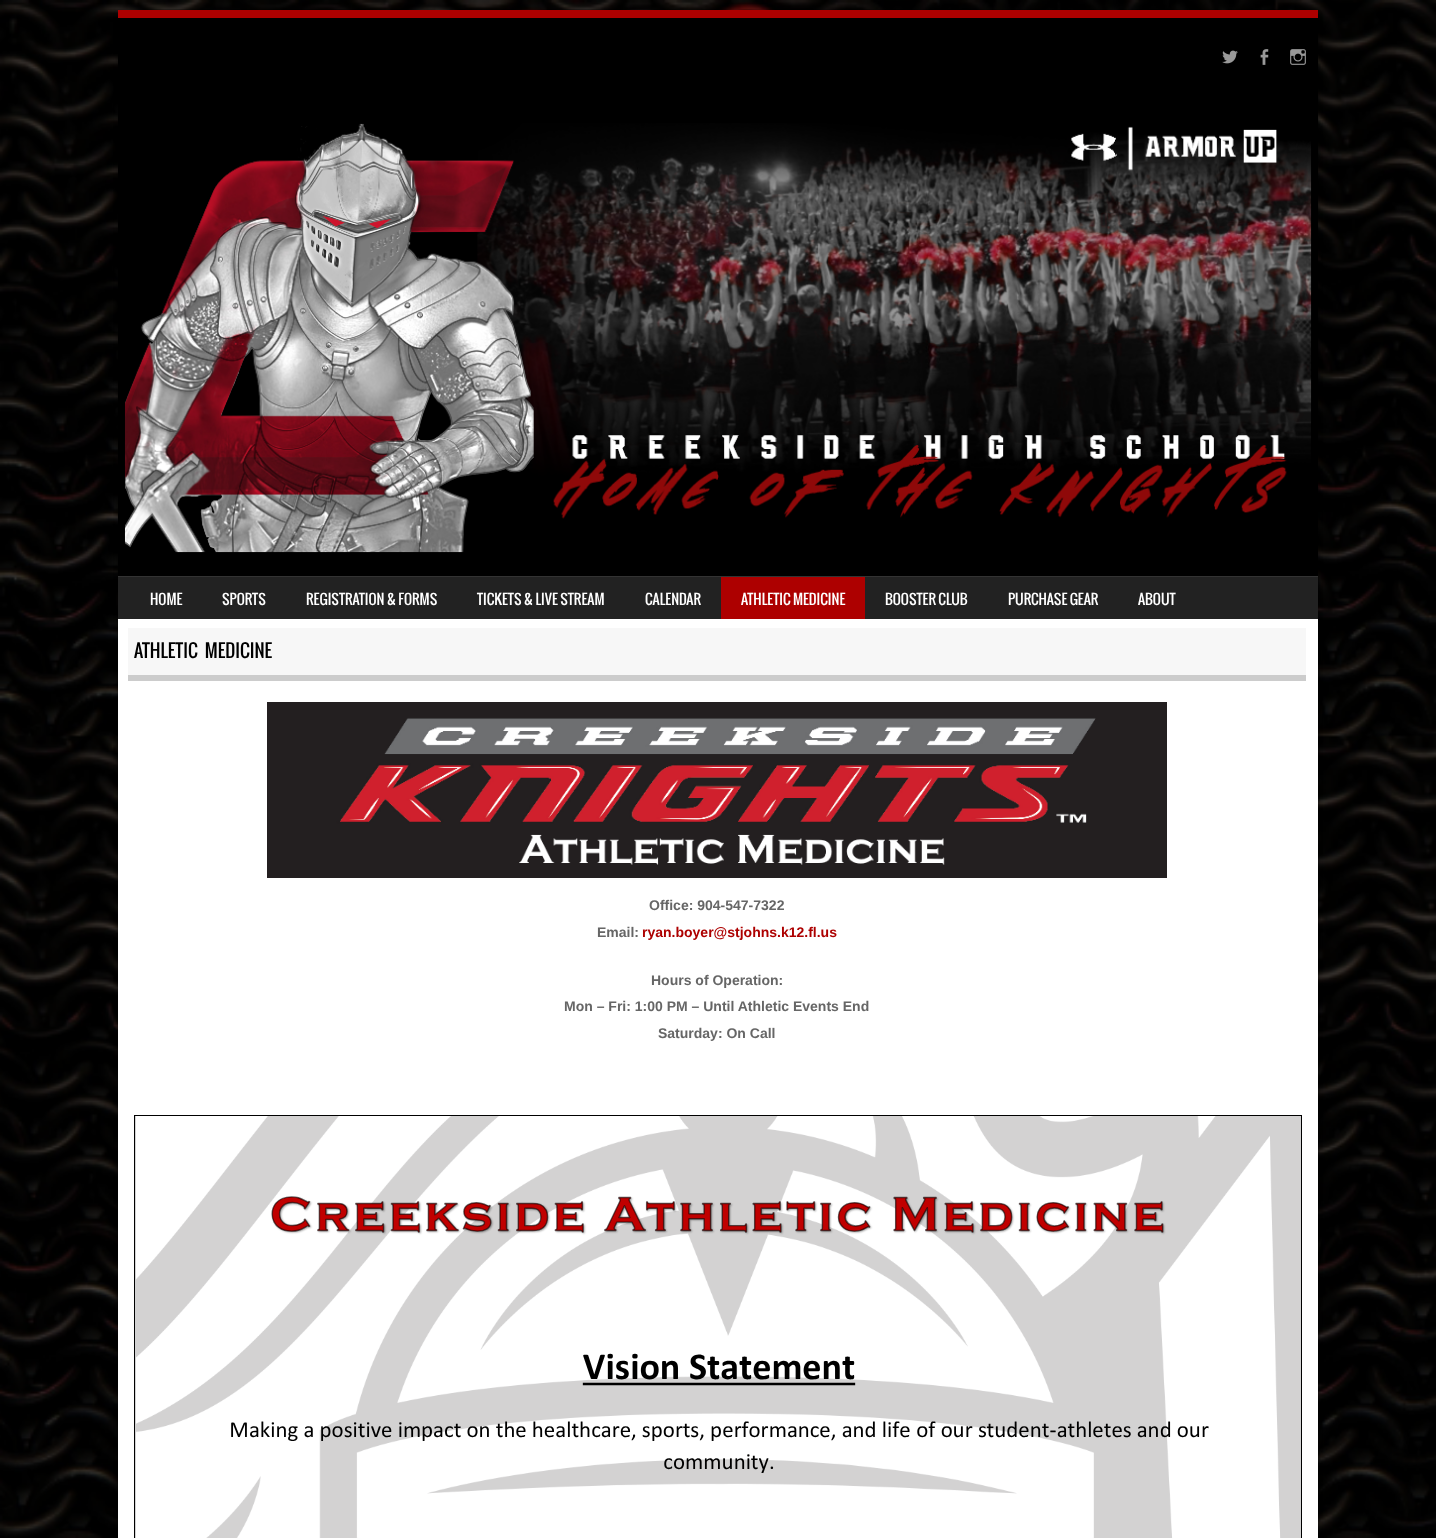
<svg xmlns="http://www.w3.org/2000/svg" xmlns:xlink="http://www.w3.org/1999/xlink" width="1436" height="1538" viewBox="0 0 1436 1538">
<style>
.cls-1{font:14px Oswald;fill:#ffffff}
.cls-2{font:18px Oswald;fill:#000000}
.cls-3{font:bold 14px Liberation Sans;fill:#666666}
.cls-4{font:bold 14px Liberation Sans;fill:#ad0000}
</style>
<rect width="100%" height="100%" fill="#ffffff"/>
<image xlink:href="image0.png" x="0" y="0" width="1436" height="1538"/>
<rect fill="#000000" fill-opacity="0.6" filter="blur(2px)" x="118" y="14" width="1200" height="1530"/>
<rect fill="#000000" x="118" y="18" width="1200" height="558"/>
<rect fill="#ad0000" x="118" y="10" width="1200" height="8"/>
<image xlink:href="image1.png" x="1222" y="50" width="16" height="14"/>
<image xlink:href="image2.png" x="1260" y="49" width="9" height="16"/>
<image xlink:href="image3.png" x="1290" y="49" width="16" height="16"/>
<image xlink:href="image4.png" x="124" y="123" width="1188" height="430"/>
<rect fill="#222222" x="118" y="577" width="1200" height="42"/>
<rect fill="#333333" x="118" y="576" width="1200" height="1"/>
<rect fill="#ad0000" x="721" y="577" width="144" height="42"/>
<rect fill="#ffffff" x="118" y="619" width="1200" height="919"/>
<rect fill="#f7f7f7" x="128" y="628" width="1178" height="47"/>
<rect fill="#cccccc" x="128" y="675" width="1178" height="6"/>
<image xlink:href="image5.png" x="267" y="702" width="900" height="176"/>
<rect fill="#d3d3d3" x="135" y="1116" width="1" height="422"/>
<rect fill="none" stroke="#000000" x="134.5" y="1115.5" width="1167" height="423"/>
<image xlink:href="image6.png" x="136" y="1116" width="1165" height="422"/>
<text class="cls-1" x="150" y="605">HOME</text>
<text class="cls-1" x="222" y="605">SPORTS</text>
<text class="cls-1" x="306" y="605">REGISTRATION &amp; FORMS</text>
<text class="cls-1" x="477" y="605">TICKETS &amp; LIVE STREAM</text>
<text class="cls-1" x="645" y="605">CALENDAR</text>
<text class="cls-1" x="741" y="605">ATHLETIC MEDICINE</text>
<text class="cls-1" x="885" y="605">BOOSTER CLUB</text>
<text class="cls-1" x="1008" y="605">PURCHASE GEAR</text>
<text class="cls-1" x="1138" y="605">ABOUT</text>
<text class="cls-2" x="134" y="658" word-spacing="4">ATHLETIC MEDICINE</text>
<text class="cls-3" x="649" y="910">Office: 904-547-7322</text>
<text class="cls-3" x="597" y="937">Email:</text>
<text class="cls-4" x="642" y="937">ryan.boyer@stjohns.k12.fl.us</text>
<text class="cls-3" x="651" y="985">Hours of Operation:</text>
<text class="cls-3" x="564" y="1011">Mon – Fri: 1:00 PM – Until Athletic Events End</text>
<text class="cls-3" x="658" y="1038">Saturday: On Call</text>
</svg>
